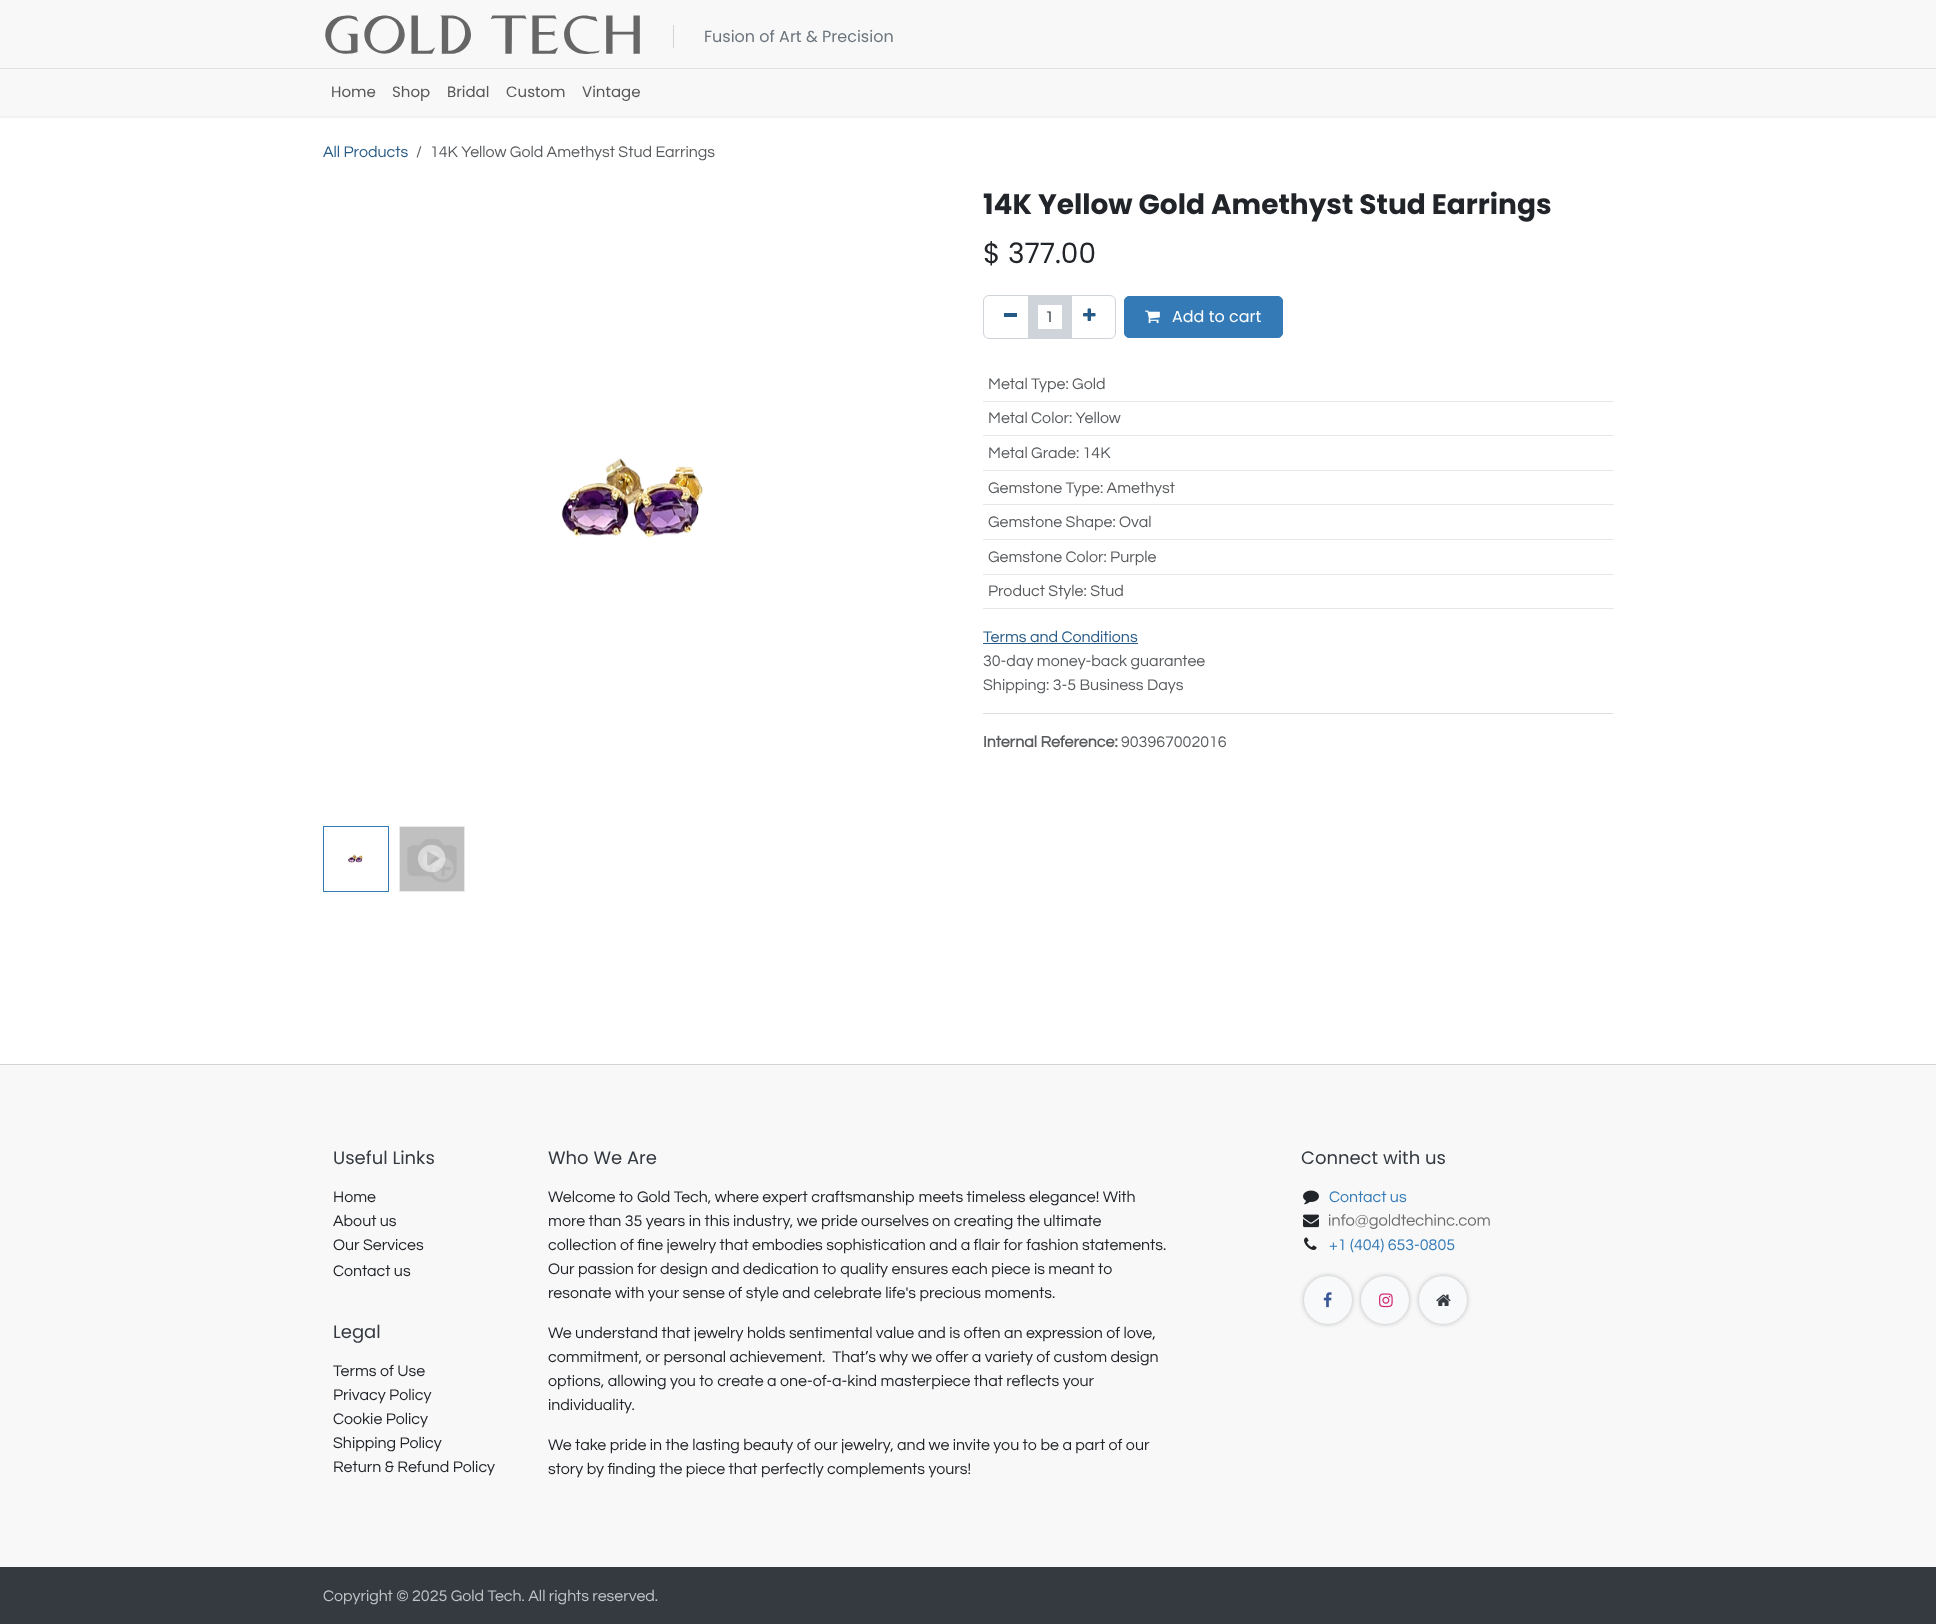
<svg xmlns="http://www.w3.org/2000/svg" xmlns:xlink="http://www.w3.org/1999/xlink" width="1936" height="1624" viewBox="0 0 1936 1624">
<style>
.cls-1{font:16px Poppins;fill:#6c757d}
.cls-2{font:15px Poppins;fill:#575757}
.cls-3{font:16px Questrial;fill:#265a87}
.cls-4{font:16px Questrial;fill:#595c5f}
.cls-5{font:bold 28px Poppins;fill:#212529}
.cls-6{font:28px Poppins;fill:#212529}
.cls-7{font:16px Questrial;fill:#212529}
.cls-8{font:16px Poppins;fill:#ffffff}
.cls-9{font:bold 16px Questrial;fill:#595c5f}
.cls-10{font:18px Poppins;fill:#343a40}
.cls-11{font:16px Questrial;fill:#337ab7}
.cls-12{font:16px Questrial;fill:#c2c4c6}
</style>
<rect width="100%" height="100%" fill="#f8f8f9"/>
<rect fill="#f2f2f2" x="0" y="116" width="1936" height="2"/>
<image xlink:href="image0.png" x="325" y="15" width="315" height="39"/>
<rect fill="#d3d3d3" x="673" y="25" width="1" height="23"/>
<rect fill="#dfdfe0" x="0" y="68" width="1936" height="1"/>
<rect fill="#ffffff" x="0" y="118" width="1936" height="946"/>
<image xlink:href="image1.png" x="561" y="458" width="142" height="80"/>
<rect fill="none" stroke="#337ab7" x="323.5" y="826.5" width="65" height="65"/>
<image xlink:href="image2.png" x="348" y="854" width="15" height="9"/>
<rect fill="#c0c0c0" stroke="#e7eaed" x="399.5" y="826.5" width="65" height="65"/>
<image xlink:href="image3.png" x="407" y="839" width="50" height="44"/>
<image xlink:href="image4.png" x="418" y="844" width="28" height="29"/>
<rect fill="none" stroke="#ced4da" stroke-width="10" x="1033" y="300" width="34" height="34"/>
<path fill="none" stroke="#ced4da" d="M989 295.5H1037.5V338.5H989C986 338.5 983.5 336 983.5 333V301C983.5 298 986 295.5 989 295.5Z"/>
<rect fill="#265a87" x="1004" y="313" width="13" height="4"/>
<path fill="none" stroke="#ced4da" d="M1062.5 295.5H1110C1113 295.5 1115.5 298 1115.5 301V333C1115.5 336 1113 338.5 1110 338.5H1062.5Z"/>
<image xlink:href="image5.png" x="1083" y="308" width="13" height="13"/>
<rect fill="#337ab7" stroke="#337ab7" x="1124.5" y="296.5" width="158" height="41" rx="4.5"/>
<image xlink:href="image6.png" x="1145" y="310" width="15" height="14"/>
<rect fill="#e6e7e7" x="983" y="401" width="631" height="1"/>
<rect fill="#e6e7e7" x="983" y="435" width="631" height="1"/>
<rect fill="#e6e7e7" x="983" y="470" width="631" height="1"/>
<rect fill="#e6e7e7" x="983" y="504" width="631" height="1"/>
<rect fill="#e6e7e7" x="983" y="539" width="631" height="1"/>
<rect fill="#e6e7e7" x="983" y="574" width="631" height="1"/>
<rect fill="#e6e7e7" x="983" y="608" width="631" height="1"/>
<rect fill="#265a87" x="983" y="643" width="155" height="1"/>
<rect fill="#dededf" x="983" y="713" width="630" height="1"/>
<rect fill="#d3d3d3" x="0" y="1064" width="1936" height="1"/>
<image xlink:href="image7.png" x="1303" y="1190" width="16" height="15"/>
<image xlink:href="image8.png" x="1303" y="1214" width="16" height="14"/>
<image xlink:href="image9.png" x="1329" y="1214" width="161" height="15"/>
<image xlink:href="image10.png" x="1304" y="1237" width="13" height="13"/>
<rect fill="#000000" fill-opacity="0.25" filter="blur(2.5px)" x="1304" y="1276" width="48" height="48" rx="24"/>
<circle fill="#f8f9fa" cx="1328" cy="1300" r="24"/>
<image xlink:href="image11.png" x="1323" y="1292" width="9" height="16"/>
<rect fill="#000000" fill-opacity="0.25" filter="blur(2.5px)" x="1361" y="1276" width="48" height="48" rx="24"/>
<circle fill="#f8f9fa" cx="1385" cy="1300" r="24"/>
<image xlink:href="image12.png" x="1379" y="1293" width="14" height="15"/>
<rect fill="#000000" fill-opacity="0.25" filter="blur(2.5px)" x="1419" y="1276" width="48" height="48" rx="24"/>
<circle fill="#f8f9fa" cx="1443" cy="1300" r="24"/>
<image xlink:href="image13.png" x="1436" y="1294" width="15" height="12"/>
<rect fill="#343a40" x="0" y="1567" width="1936" height="57"/>
<text class="cls-1" x="704" y="42">Fusion of Art &amp; Precision</text>
<text class="cls-2" x="331" y="97">Home</text>
<text class="cls-2" x="392" y="97">Shop</text>
<text class="cls-2" x="447" y="97">Bridal</text>
<text class="cls-2" x="506" y="97">Custom</text>
<text class="cls-2" x="582" y="97">Vintage</text>
<text class="cls-3" x="323" y="157">All Products</text>
<text class="cls-4" x="416" y="157">/</text>
<text class="cls-4" x="430" y="157">14K Yellow Gold Amethyst Stud Earrings</text>
<text class="cls-5" x="983" y="214">14K Yellow Gold Amethyst Stud Earrings</text>
<text class="cls-6" x="983" y="263">$ 377.00</text>
<text class="cls-7" x="1045" y="322">1</text>
<text class="cls-8" x="1172" y="322">Add to cart</text>
<text class="cls-4" x="988" y="389">Metal Type: Gold</text>
<text class="cls-4" x="988" y="423">Metal Color: Yellow</text>
<text class="cls-4" x="988" y="458">Metal Grade: 14K</text>
<text class="cls-4" x="988" y="493">Gemstone Type: Amethyst</text>
<text class="cls-4" x="988" y="527">Gemstone Shape: Oval</text>
<text class="cls-4" x="988" y="562">Gemstone Color: Purple</text>
<text class="cls-4" x="988" y="596">Product Style: Stud</text>
<text class="cls-3" x="983" y="642">Terms and Conditions</text>
<text class="cls-4"><tspan x="983" y="666">30-day money-back guarantee</tspan><tspan x="983" y="690">Shipping: 3-5 Business Days</tspan></text>
<text class="cls-9" x="983" y="747">Internal Reference:</text>
<text class="cls-4" x="1121" y="747">903967002016</text>
<text class="cls-10" x="333" y="1164">Useful Links</text>
<text class="cls-7"><tspan x="333" y="1202">Home</tspan><tspan x="333" y="1226">About us</tspan><tspan x="333" y="1250">Our Services</tspan><tspan x="333" y="1276">Contact us</tspan></text>
<text class="cls-10" x="548" y="1164">Who We Are</text>
<text class="cls-7"><tspan x="548" y="1202">Welcome to Gold Tech, where expert craftsmanship meets timeless elegance! With</tspan><tspan x="548" y="1226">more than 35 years in this industry, we pride ourselves on creating the ultimate</tspan><tspan x="548" y="1250">collection of fine jewelry that embodies sophistication and a flair for fashion statements.</tspan><tspan x="548" y="1274">Our passion for design and dedication to quality ensures each piece is meant to</tspan><tspan x="548" y="1298">resonate with your sense of style and celebrate life's precious moments.</tspan></text>
<text class="cls-7" xml:space="preserve"><tspan x="548" y="1338">We understand that jewelry holds sentimental value and is often an expression of love,</tspan><tspan x="548" y="1362">commitment, or personal achievement.  That’s why we offer a variety of custom design</tspan><tspan x="548" y="1386">options, allowing you to create a one-of-a-kind masterpiece that reflects your</tspan><tspan x="548" y="1410">individuality.</tspan></text>
<text class="cls-7"><tspan x="548" y="1450">We take pride in the lasting beauty of our jewelry, and we invite you to be a part of our</tspan><tspan x="548" y="1474">story by finding the piece that perfectly complements yours!</tspan></text>
<text class="cls-10" x="1301" y="1164">Connect with us</text>
<text class="cls-11" x="1329" y="1202">Contact us</text>
<text class="cls-11" x="1329" y="1250">+1 (404) 653-0805</text>
<text class="cls-10" x="333" y="1338">Legal</text>
<text class="cls-7"><tspan x="333" y="1376">Terms of Use</tspan><tspan x="333" y="1400">Privacy Policy</tspan><tspan x="333" y="1424">Cookie Policy</tspan><tspan x="333" y="1448">Shipping Policy</tspan><tspan x="333" y="1472">Return &amp; Refund Policy</tspan></text>
<text class="cls-12" x="323" y="1601">Copyright © 2025 Gold Tech. All rights reserved.</text>
</svg>
